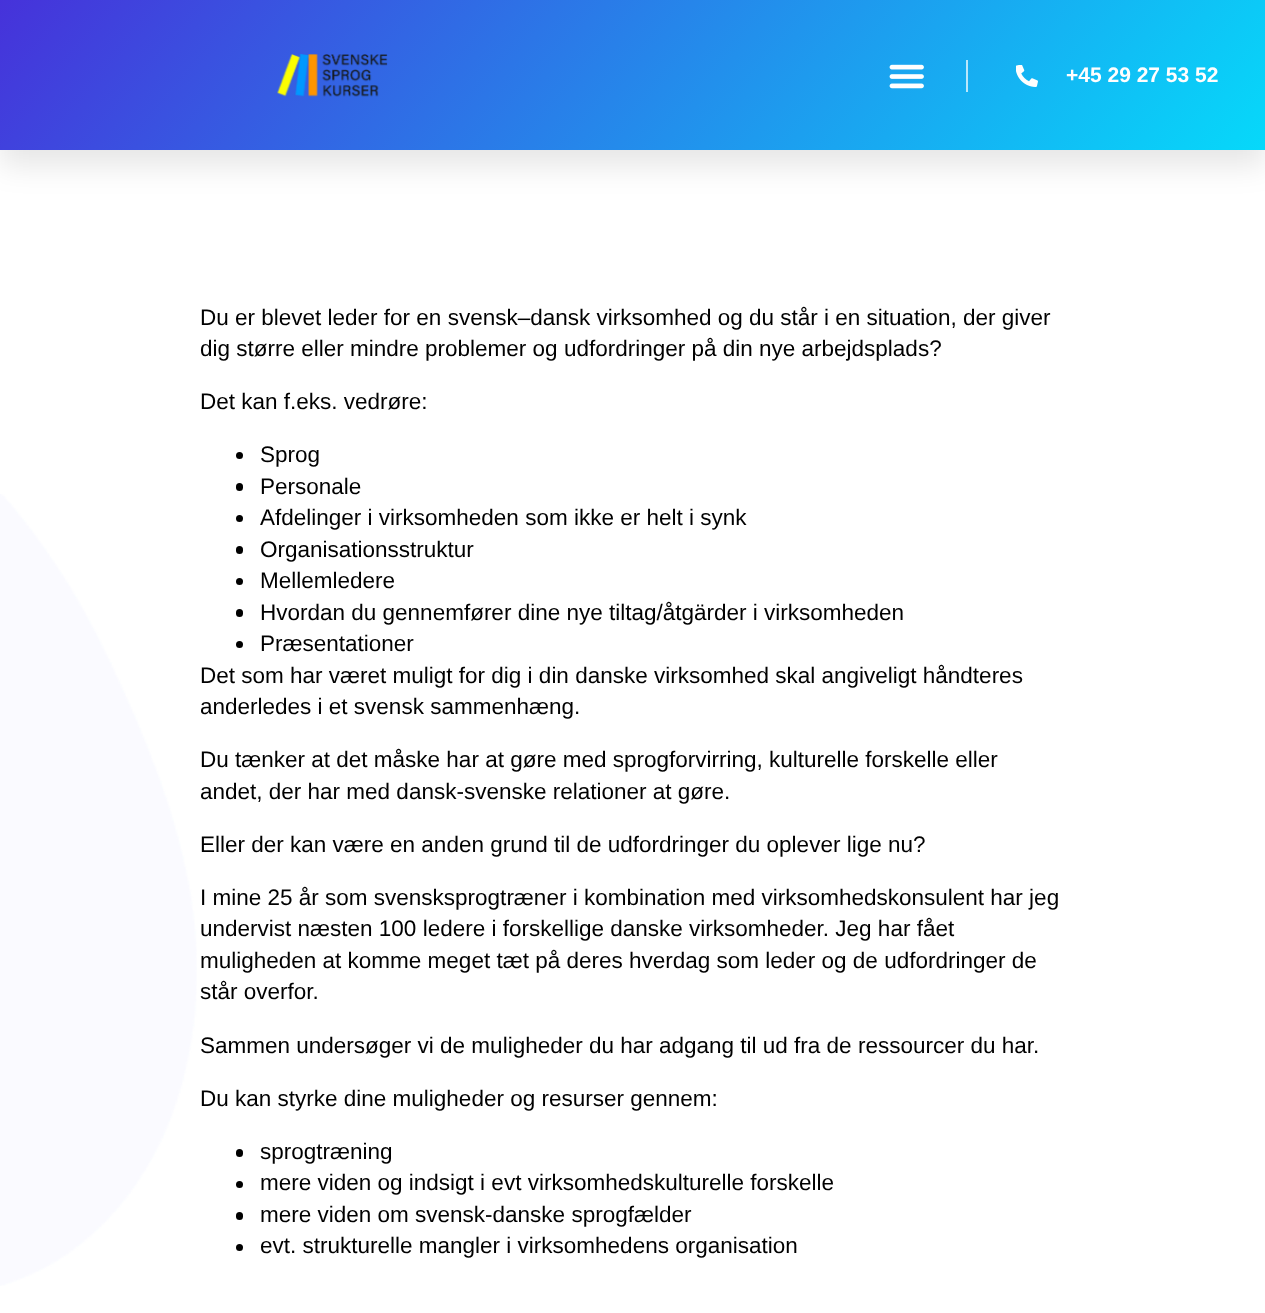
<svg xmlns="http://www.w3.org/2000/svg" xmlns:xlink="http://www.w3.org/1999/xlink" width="1265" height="1313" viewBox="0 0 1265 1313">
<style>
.cls-1{font:bold 21px Liberation Sans;fill:#fffefe}
.cls-2{font:22.5px Liberation Sans;fill:#000000}
</style>
<defs>
<linearGradient id="g1" gradientUnits="userSpaceOnUse" x1="225" y1="-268" x2="1041" y2="418"><stop offset="0" stop-color="#4632da"/><stop offset="1" stop-color="#06d9fa"/></linearGradient>
<linearGradient id="g2" gradientUnits="userSpaceOnUse" x1="225" y1="-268" x2="1041" y2="418"><stop offset="0" stop-color="#c8c2f4"/><stop offset="1" stop-color="#b4f4fe"/></linearGradient>
</defs>
<rect width="100%" height="100%" fill="#ffffff"/>
<rect fill="#000000" fill-opacity="0.1" filter="blur(15px)" x="0" y="15" width="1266" height="150"/>
<rect fill="url(#g1)" x="0" y="0" width="1265" height="150"/>
<rect fill="url(#g2)" x="966" y="60" width="2" height="32"/>
<image xlink:href="image0.png" x="277" y="54" width="111" height="43"/>
<image xlink:href="image1.png" x="889" y="64" width="35" height="25"/>
<image xlink:href="image2.png" x="1016" y="65" width="22" height="22"/>
<image xlink:href="image3.png" x="0" y="494" width="197" height="792"/>
<circle fill="#000000" cx="239.5" cy="455.5" r="3.5"/>
<rect fill="#000000" x="236" y="483" width="7" height="8" rx="3.5"/>
<circle fill="#000000" cx="239.5" cy="518.5" r="3.5"/>
<rect fill="#000000" x="236" y="546" width="7" height="8" rx="3.5"/>
<circle fill="#000000" cx="239.5" cy="581.5" r="3.5"/>
<rect fill="#000000" x="236" y="609" width="7" height="8" rx="3.5"/>
<circle fill="#000000" cx="239.5" cy="644.5" r="3.5"/>
<rect fill="#000000" x="236" y="1149" width="7" height="8" rx="3.5"/>
<circle fill="#000000" cx="239.5" cy="1184.5" r="3.5"/>
<rect fill="#000000" x="236" y="1212" width="7" height="8" rx="3.5"/>
<circle fill="#000000" cx="239.5" cy="1247.5" r="3.5"/>
<text class="cls-1" x="1066" y="82">+45 29 27 53 52</text>
<text class="cls-2"><tspan x="200" y="325">Du er blevet leder for en svensk–dansk virksomhed og du står i en situation, der giver</tspan><tspan x="200" y="356">dig større eller mindre problemer og udfordringer på din nye arbejdsplads?</tspan></text>
<text class="cls-2" x="200" y="409">Det kan f.eks. vedrøre:</text>
<text class="cls-2"><tspan x="260" y="462">Sprog</tspan><tspan x="260" y="494">Personale</tspan><tspan x="260" y="525">Afdelinger i virksomheden som ikke er helt i synk</tspan><tspan x="260" y="557">Organisationsstruktur</tspan><tspan x="260" y="588">Mellemledere</tspan><tspan x="260" y="620">Hvordan du gennemfører dine nye tiltag/åtgärder i virksomheden</tspan><tspan x="260" y="651">Præsentationer</tspan></text>
<text class="cls-2"><tspan x="200" y="683">Det som har været muligt for dig i din danske virksomhed skal angiveligt håndteres</tspan><tspan x="200" y="714">anderledes i et svensk sammenhæng.</tspan></text>
<text class="cls-2"><tspan x="200" y="767">Du tænker at det måske har at gøre med sprogforvirring, kulturelle forskelle eller</tspan><tspan x="200" y="799">andet, der har med dansk-svenske relationer at gøre.</tspan></text>
<text class="cls-2" x="200" y="852">Eller der kan være en anden grund til de udfordringer du oplever lige nu?</text>
<text class="cls-2"><tspan x="200" y="905">I mine 25 år som svensksprogtræner i kombination med virksomhedskonsulent har jeg</tspan><tspan x="200" y="936">undervist næsten 100 ledere i forskellige danske virksomheder. Jeg har fået</tspan><tspan x="200" y="968">muligheden at komme meget tæt på deres hverdag som leder og de udfordringer de</tspan><tspan x="200" y="999">står overfor.</tspan></text>
<text class="cls-2" x="200" y="1053">Sammen undersøger vi de muligheder du har adgang til ud fra de ressourcer du har.</text>
<text class="cls-2" x="200" y="1106">Du kan styrke dine muligheder og resurser gennem:</text>
<text class="cls-2"><tspan x="260" y="1159">sprogtræning</tspan><tspan x="260" y="1190">mere viden og indsigt i evt virksomhedskulturelle forskelle</tspan><tspan x="260" y="1222">mere viden om svensk-danske sprogfælder</tspan><tspan x="260" y="1253">evt. strukturelle mangler i virksomhedens organisation</tspan></text>
</svg>
